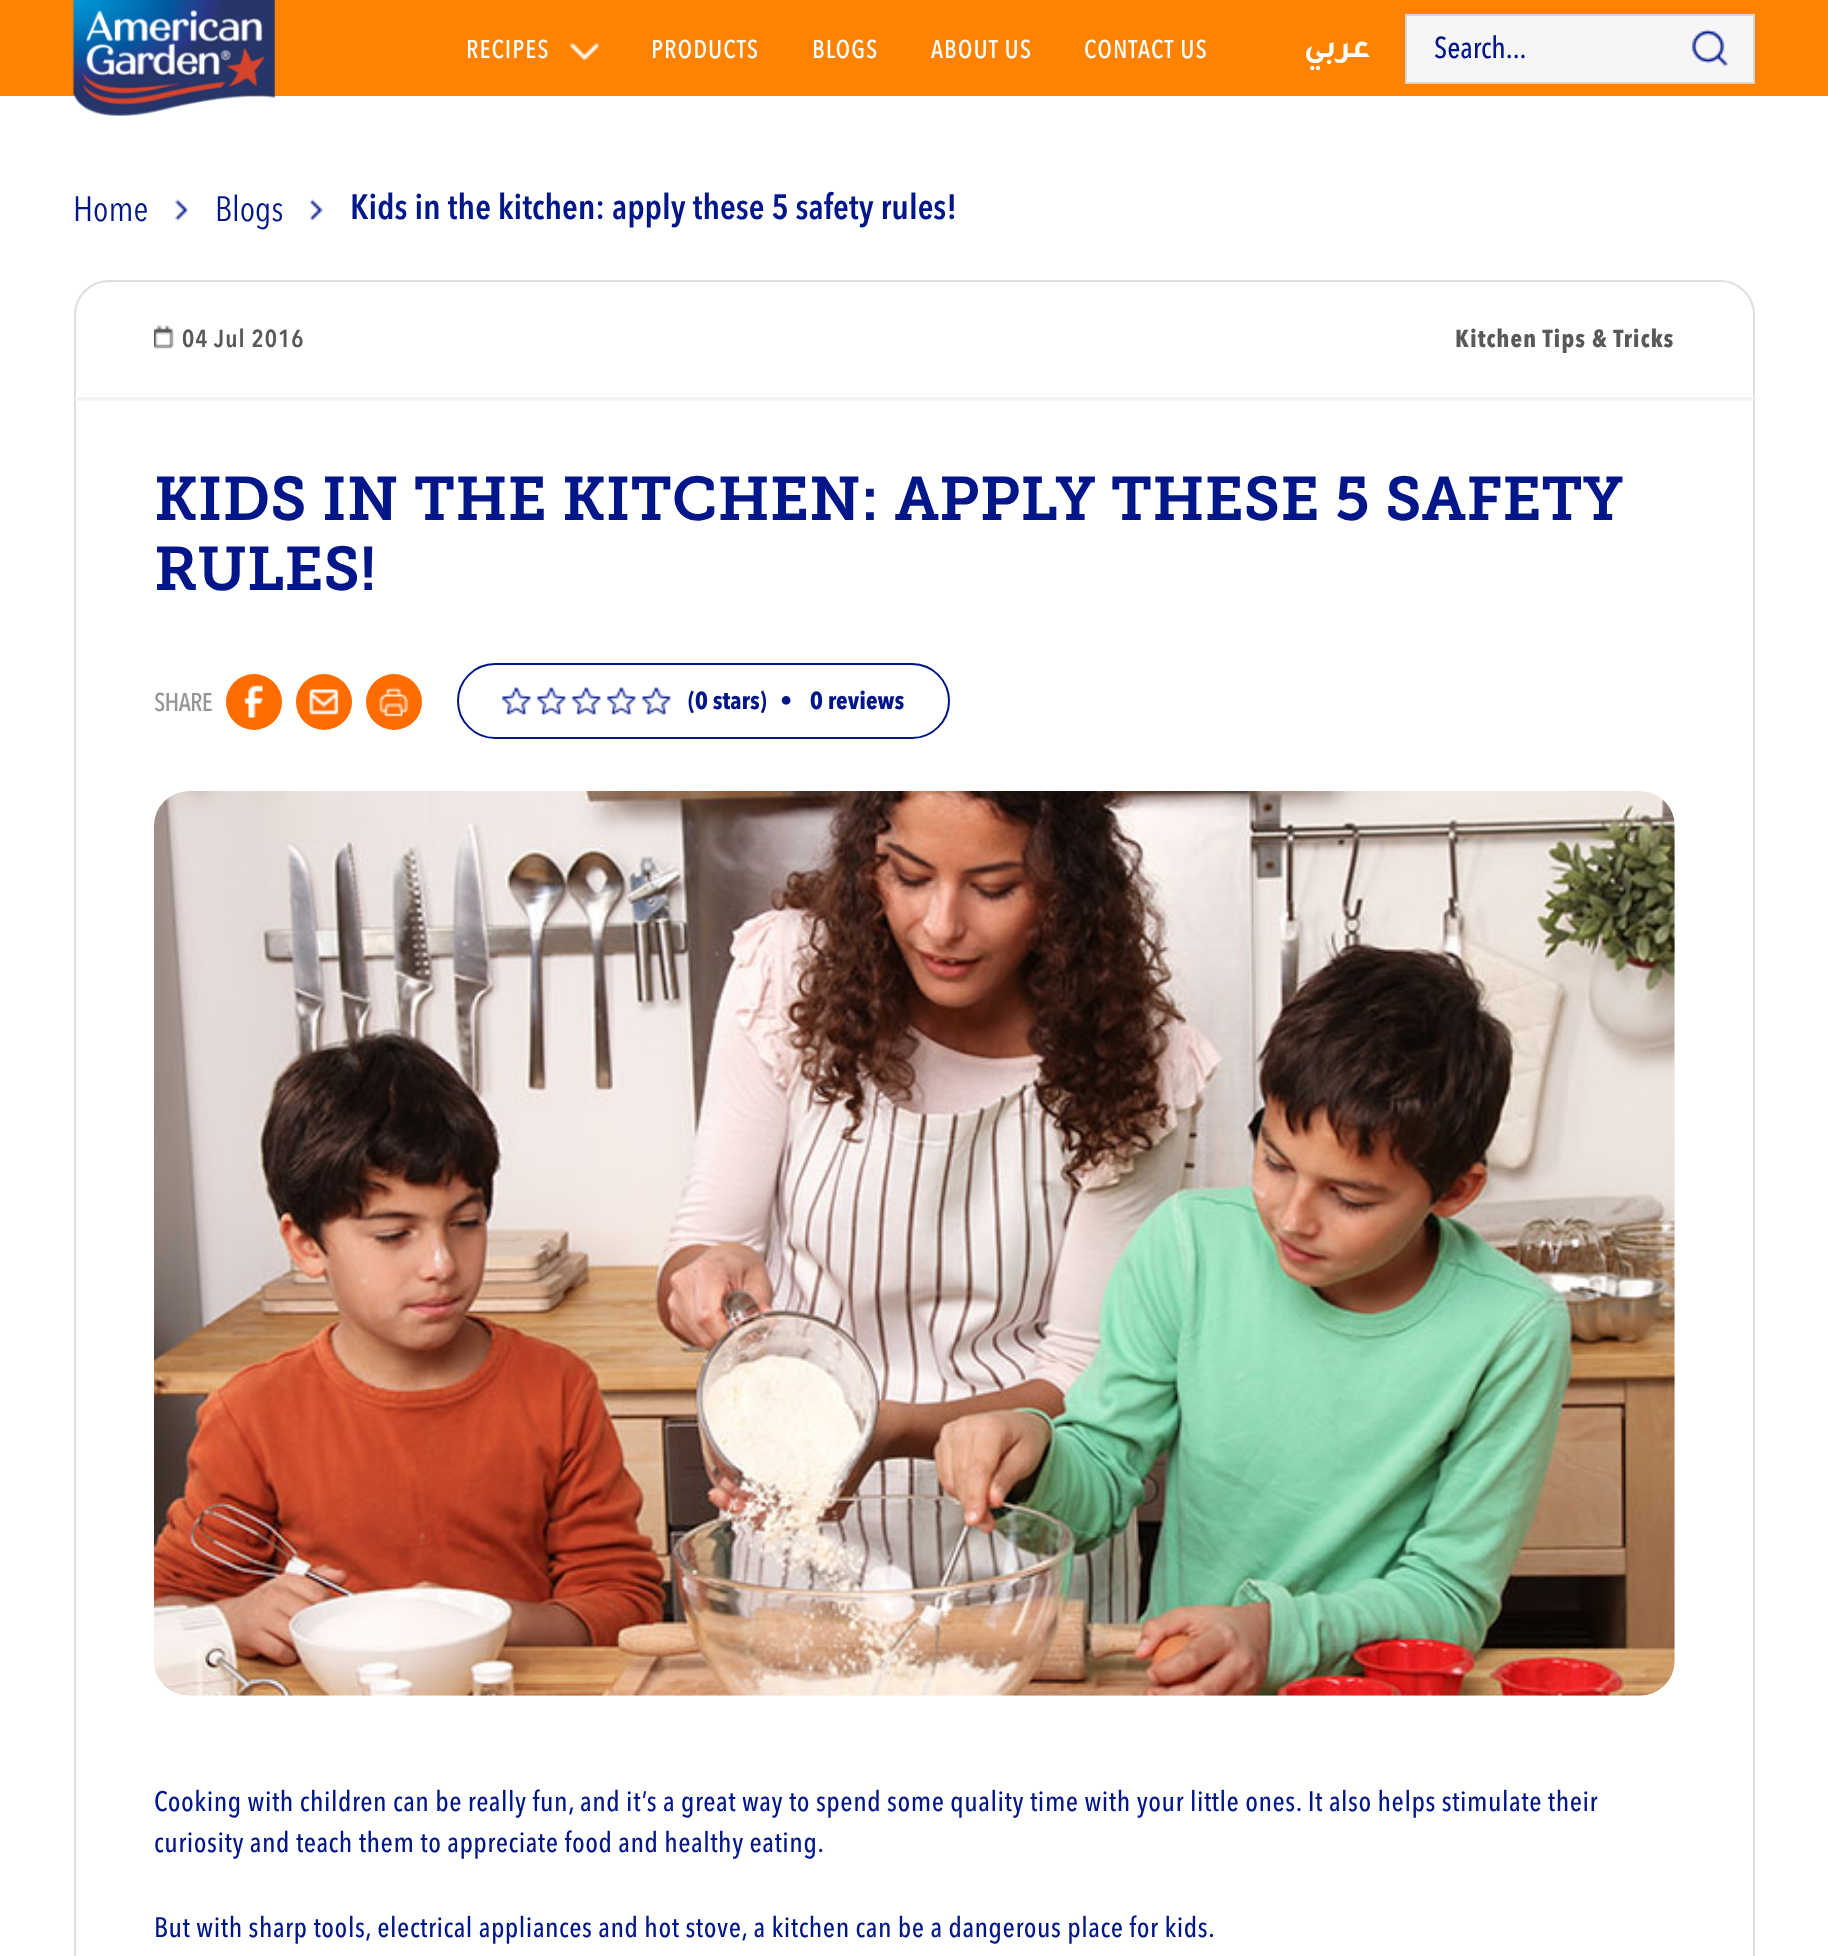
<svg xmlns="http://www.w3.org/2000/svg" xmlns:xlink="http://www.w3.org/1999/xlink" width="1828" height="1956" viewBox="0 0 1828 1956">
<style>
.cls-1{font:bold 24.5px 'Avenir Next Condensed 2';letter-spacing:1.75px;fill:#ffffff}
.cls-2{font:bold 31.5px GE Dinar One;direction:rtl;fill:#ffffff}
.cls-3{font:500 30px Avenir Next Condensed;fill:#001689}
.cls-4{font:35px Avenir Next Condensed;fill:#001689}
.cls-5{font:600 35px Avenir Next Condensed;fill:#001689}
.cls-6{font:600 24.5px Avenir Next Condensed;letter-spacing:1px;fill:#595959}
.cls-7{font:bold 24.5px Avenir Next Condensed;letter-spacing:1px;fill:#595959}
.cls-8{font:61.25px Museo Slab;fill:#001689}
.cls-9{font:bold 24.5px 'Avenir Next Condensed 2';fill:#969696}
.cls-10{font:bold 24.5px Avenir Next Condensed;fill:#001689}
.cls-11{font:italic bold 24.5px Avenir Next Condensed;fill:#001689}
.cls-12{font:500 28px Avenir Next Condensed;letter-spacing:0.53px;fill:#001689}
</style>
<rect width="100%" height="100%" fill="#ffffff"/>
<rect fill="#ff8200" x="0" y="0" width="1828" height="96"/>
<image xlink:href="image0.png" x="72" y="0" width="203" height="116"/>
<image xlink:href="image1.png" x="570" y="43" width="29" height="17"/>
<rect fill="#f6f6f6" stroke="#d6d6d6" stroke-width="2" x="1406" y="15" width="348" height="68"/>
<image xlink:href="image2.png" x="1691" y="29" width="37" height="38"/>
<image xlink:href="image3.png" x="175" y="199" width="13" height="22"/>
<image xlink:href="image4.png" x="309" y="199" width="14" height="22"/>
<rect fill="none" stroke="#e0dedd" stroke-width="2" x="75" y="281" width="1679" height="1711" rx="34"/>
<rect fill="#f6f4f3" x="75" y="397" width="1679" height="4"/>
<image xlink:href="image5.png" x="154" y="325" width="20" height="24"/>
<circle fill="#fe6b00" cx="254" cy="702" r="28"/>
<image xlink:href="image6.png" x="244" y="685" width="19" height="33"/>
<circle fill="#fe6b00" cx="324" cy="702" r="28"/>
<image xlink:href="image7.png" x="309" y="689" width="30" height="26"/>
<circle fill="#fe6b00" cx="394" cy="702" r="28"/>
<image xlink:href="image8.png" x="379" y="687" width="30" height="30"/>
<rect fill="none" stroke="#001689" stroke-width="2" x="458" y="664" width="491" height="74" rx="37"/>
<image xlink:href="image9.png" x="502" y="687" width="169" height="28"/>
<image xlink:href="image10.png" x="154" y="791" width="1521" height="905"/>
<text class="cls-1" x="466" y="58">RECIPES</text>
<text class="cls-1" x="651" y="58">PRODUCTS</text>
<text class="cls-1" x="812" y="58">BLOGS</text>
<text class="cls-1" x="931" y="58">ABOUT US</text>
<text class="cls-1" x="1084" y="58">CONTACT US</text>
<text class="cls-2" x="1371" y="57">عربي</text>
<text class="cls-3" x="1434" y="58">Search...</text>
<text class="cls-4" x="73" y="221">Home</text>
<text class="cls-4" x="215" y="221">Blogs</text>
<text class="cls-5" x="350" y="219">Kids in the kitchen: apply these 5 safety rules!</text>
<text class="cls-6" x="182" y="347">04 Jul 2016</text>
<text class="cls-7" x="1455" y="347">Kitchen Tips &amp; Tricks</text>
<text class="cls-8"><tspan x="154" y="520">KIDS IN THE KITCHEN: APPLY THESE 5 SAFETY</tspan><tspan x="154" y="590">RULES!</tspan></text>
<text class="cls-9" x="154" y="711">SHARE</text>
<text class="cls-10" x="688" y="709">(0 stars)</text>
<text class="cls-11" x="780" y="709">•</text>
<text class="cls-10" x="810" y="709">0 reviews</text>
<text class="cls-12"><tspan x="154" y="1811">Cooking with children can be really fun, and it’s a great way to spend some quality time with your little ones. It also helps stimulate their</tspan><tspan x="154" y="1852">curiosity and teach them to appreciate food and healthy eating.</tspan></text>
<text class="cls-12" x="154" y="1937">But with sharp tools, electrical appliances and hot stove, a kitchen can be a dangerous place for kids.</text>
</svg>
